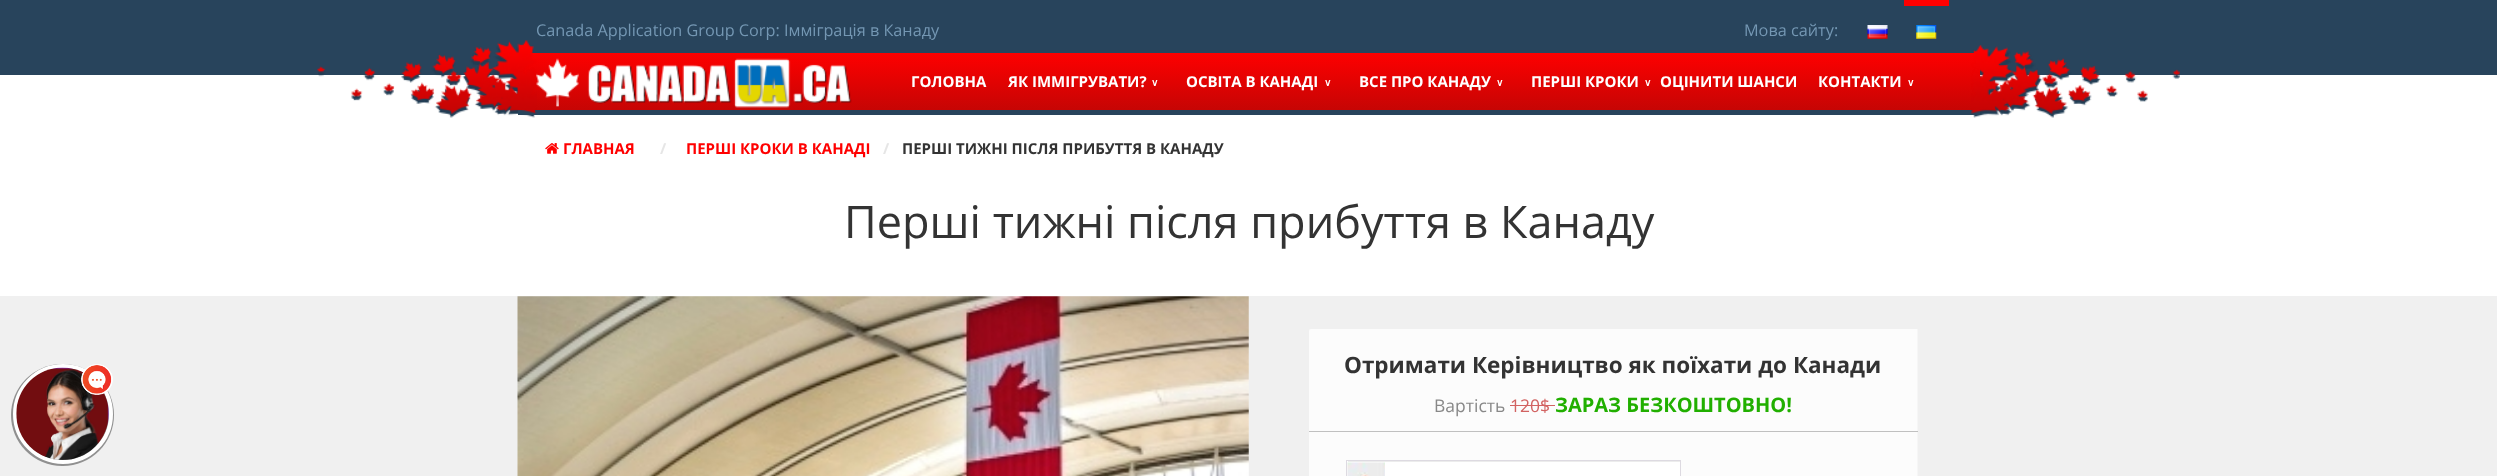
<svg xmlns="http://www.w3.org/2000/svg" xmlns:xlink="http://www.w3.org/1999/xlink" width="2497" height="476" viewBox="0 0 2497 476">
<style>
.cls-1{font:16.25px Open Sans;fill:#7497b3}
.cls-2{font:bold 15px Open Sans;fill:#ffffff}
.cls-3{font:bold 10px DejaVu Sans;fill:#ffffff}
.cls-4{font:bold 15px Open Sans;fill:#ff0000}
.cls-5{font:bold 15px Open Sans;fill:#e6e6e6}
.cls-6{font:bold 15px Open Sans;fill:#333333}
.cls-7{font:45px Open Sans;fill:#333333}
.cls-8{font:bold 22.5px Open Sans;fill:#333333}
.cls-9{font:17.5px Open Sans;fill:#888888}
.cls-10{font:17.5px Open Sans;fill:#d26362}
.cls-11{font:bold 20px Open Sans;fill:#21af00}
</style>
<defs>
<linearGradient id="g1" gradientUnits="userSpaceOnUse" x1="1249" y1="110" x2="1249" y2="53"><stop offset="0" stop-color="#c60504"/><stop offset="1" stop-color="#fe0000"/></linearGradient>
</defs>
<rect width="100%" height="100%" fill="#ffffff"/>
<rect fill="#28445c" x="0" y="0" width="2497" height="75"/>
<rect fill="#ff0000" x="1904" y="0" width="45" height="6"/>
<image xlink:href="image0.png" x="1867" y="25" width="21" height="14"/>
<image xlink:href="image1.png" x="1916" y="25" width="21" height="14"/>
<image xlink:href="image2.png" x="318" y="44" width="217" height="74"/>
<image xlink:href="image3.png" x="1973" y="50" width="207" height="68"/>
<rect fill="url(#g1)" x="518" y="53" width="1462" height="57"/>
<rect fill="#28445c" x="518" y="110" width="1462" height="5"/>
<image xlink:href="image4.png" x="317" y="40" width="220" height="74"/>
<image xlink:href="image5.png" x="536" y="58" width="316" height="50"/>
<image xlink:href="image6.png" x="1971" y="45" width="209" height="69"/>
<rect fill="#f0f0f0" x="0" y="296" width="2497" height="180"/>
<rect fill="#000000" fill-opacity="0.4" filter="blur(0.5px)" x="11" y="364" width="103" height="102" rx="51"/>
<circle fill="none" stroke="#ffffff" stroke-width="4" cx="63" cy="414" r="48"/>
<image xlink:href="image7.png" x="16" y="367" width="93" height="93"/>
<rect fill="#ffffff" stroke="#ffffff" x="81.5" y="364.5" width="31" height="30" rx="15"/>
<image xlink:href="image8.png" x="82" y="365" width="30" height="29"/>
<image xlink:href="image9.png" x="545" y="143" width="14" height="11"/>
<image xlink:href="image10.png" x="517" y="296" width="732" height="180"/>
<image xlink:href="image11.png" x="1309" y="329" width="609" height="147"/>
<rect fill="#d26362" x="1510" y="405" width="45" height="1"/>
<rect fill="#c0c0c0" x="1309" y="431" width="609" height="1"/>
<rect fill="#ffffff" x="1347" y="461" width="333" height="15"/>
<rect fill="#ececec" x="1348" y="461" width="332" height="1"/>
<rect fill="none" stroke="#dddae1" x="1346.5" y="460.5" width="334" height="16"/>
<image xlink:href="image12.png" x="1347" y="462" width="38" height="14"/>
<text class="cls-1" x="536" y="36">Canada Application Group Corp: Імміграція в Канаду</text>
<text class="cls-1" x="1744" y="36">Мова сайту:</text>
<text class="cls-2" x="911" y="87">ГОЛОВНА</text>
<text class="cls-2" x="1008" y="87">ЯК ІММІГРУВАТИ?</text>
<text class="cls-3" x="1151" y="86">∨</text>
<text class="cls-2" x="1186" y="87">ОСВІТА В КАНАДІ</text>
<text class="cls-3" x="1324" y="86">∨</text>
<text class="cls-2" x="1359" y="87">ВСЕ ПРО КАНАДУ</text>
<text class="cls-3" x="1496" y="86">∨</text>
<text class="cls-2" x="1531" y="87">ПЕРШІ КРОКИ</text>
<text class="cls-3" x="1644" y="86">∨</text>
<text class="cls-2" x="1660" y="87">ОЦІНИТИ ШАНСИ</text>
<text class="cls-2" x="1818" y="87">КОНТАКТИ</text>
<text class="cls-3" x="1907" y="86">∨</text>
<text class="cls-4" x="563" y="154">ГЛАВНАЯ</text>
<text class="cls-5" x="660" y="154">/</text>
<text class="cls-4" x="686" y="154">ПЕРШІ КРОКИ В КАНАДІ</text>
<text class="cls-5" x="883" y="154">/</text>
<text class="cls-6" x="902" y="154">ПЕРШІ ТИЖНІ ПІСЛЯ ПРИБУТТЯ В КАНАДУ</text>
<text class="cls-7" x="844" y="238">Перші тижні після прибуття в Канаду</text>
<text class="cls-8" x="1344" y="373">Отримати Керівництво як поїхати до Канади</text>
<text class="cls-9" x="1434" y="412">Вартість</text>
<text class="cls-10" x="1510" y="412">120$</text>
<text class="cls-11" x="1555" y="412">ЗАРАЗ БЕЗКОШТОВНО!</text>
</svg>
